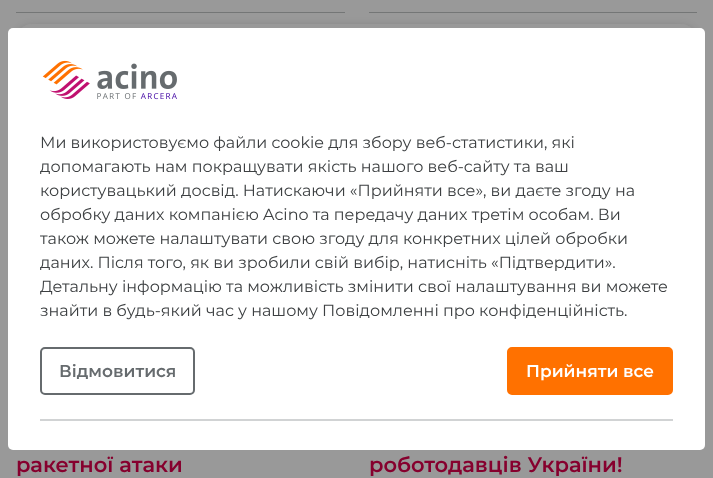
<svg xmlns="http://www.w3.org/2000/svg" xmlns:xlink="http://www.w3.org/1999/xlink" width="713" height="478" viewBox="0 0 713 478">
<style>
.cls-1{font:16px Montserrat;fill:#3d4042}
.cls-2{font:600 17px Montserrat;fill:#666b6e}
.cls-3{font:600 17px Montserrat;fill:#ffffff}
.cls-4{font:600 21px Montserrat;fill:#86002e}
</style>
<defs>
<clipPath id="clip1"><path d="M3 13H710V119H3ZM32 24H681C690 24 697 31 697 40V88C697 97 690 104 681 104H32C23 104 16 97 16 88V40C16 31 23 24 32 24Z" clip-rule="evenodd"/></clipPath>
</defs>
<rect width="100%" height="100%" fill="#999999"/>
<g clip-path="url(#clip1)">
<rect fill="#000000" fill-opacity="0.16" filter="blur(4px)" x="16" y="26" width="681" height="80" rx="16"/>
</g>
<rect fill="#999999" fill-opacity="0.8" x="16" y="24" width="681" height="80" rx="16"/>
<rect fill="#ffffff" x="8" y="28" width="697" height="422" rx="5"/>
<image xlink:href="image0.png" x="42" y="60" width="135" height="40"/>
<rect fill="none" stroke="#666b6e" stroke-width="2" x="41" y="348" width="153" height="46" rx="4"/>
<rect fill="#ff7100" stroke="#ff7100" stroke-width="2" x="508" y="348" width="164" height="46" rx="4"/>
<rect fill="#d1d3d4" x="40" y="419" width="633" height="2"/>
<rect fill="#747676" x="16" y="12" width="329" height="1"/>
<rect fill="#747676" x="369" y="12" width="328" height="1"/>
<text class="cls-1"><tspan x="40" y="148">Ми використовуємо файли cookie для збору веб-статистики, які</tspan><tspan x="40" y="172">допомагають нам покращувати якість нашого веб-сайту та ваш</tspan><tspan x="40" y="196">користувацький досвід. Натискаючи «Прийняти все», ви даєте згоду на</tspan><tspan x="40" y="220">обробку даних компанією Acino та передачу даних третім особам. Ви</tspan><tspan x="40" y="244">також можете налаштувати свою згоду для конкретних цілей обробки</tspan><tspan x="40" y="268">даних. Після того, як ви зробили свій вибір, натисніть «Підтвердити».</tspan><tspan x="40" y="292">Детальну інформацію та можливість змінити свої налаштування ви можете</tspan><tspan x="40" y="316">знайти в будь-який час у нашому Повідомленні про конфіденційність.</tspan></text>
<text class="cls-2" x="59" y="377">Відмовитися</text>
<text class="cls-3" x="526" y="377">Прийняти все</text>
<text class="cls-4" x="16" y="472">ракетної атаки</text>
<text class="cls-4" x="369" y="472">роботодавців України!</text>
</svg>
